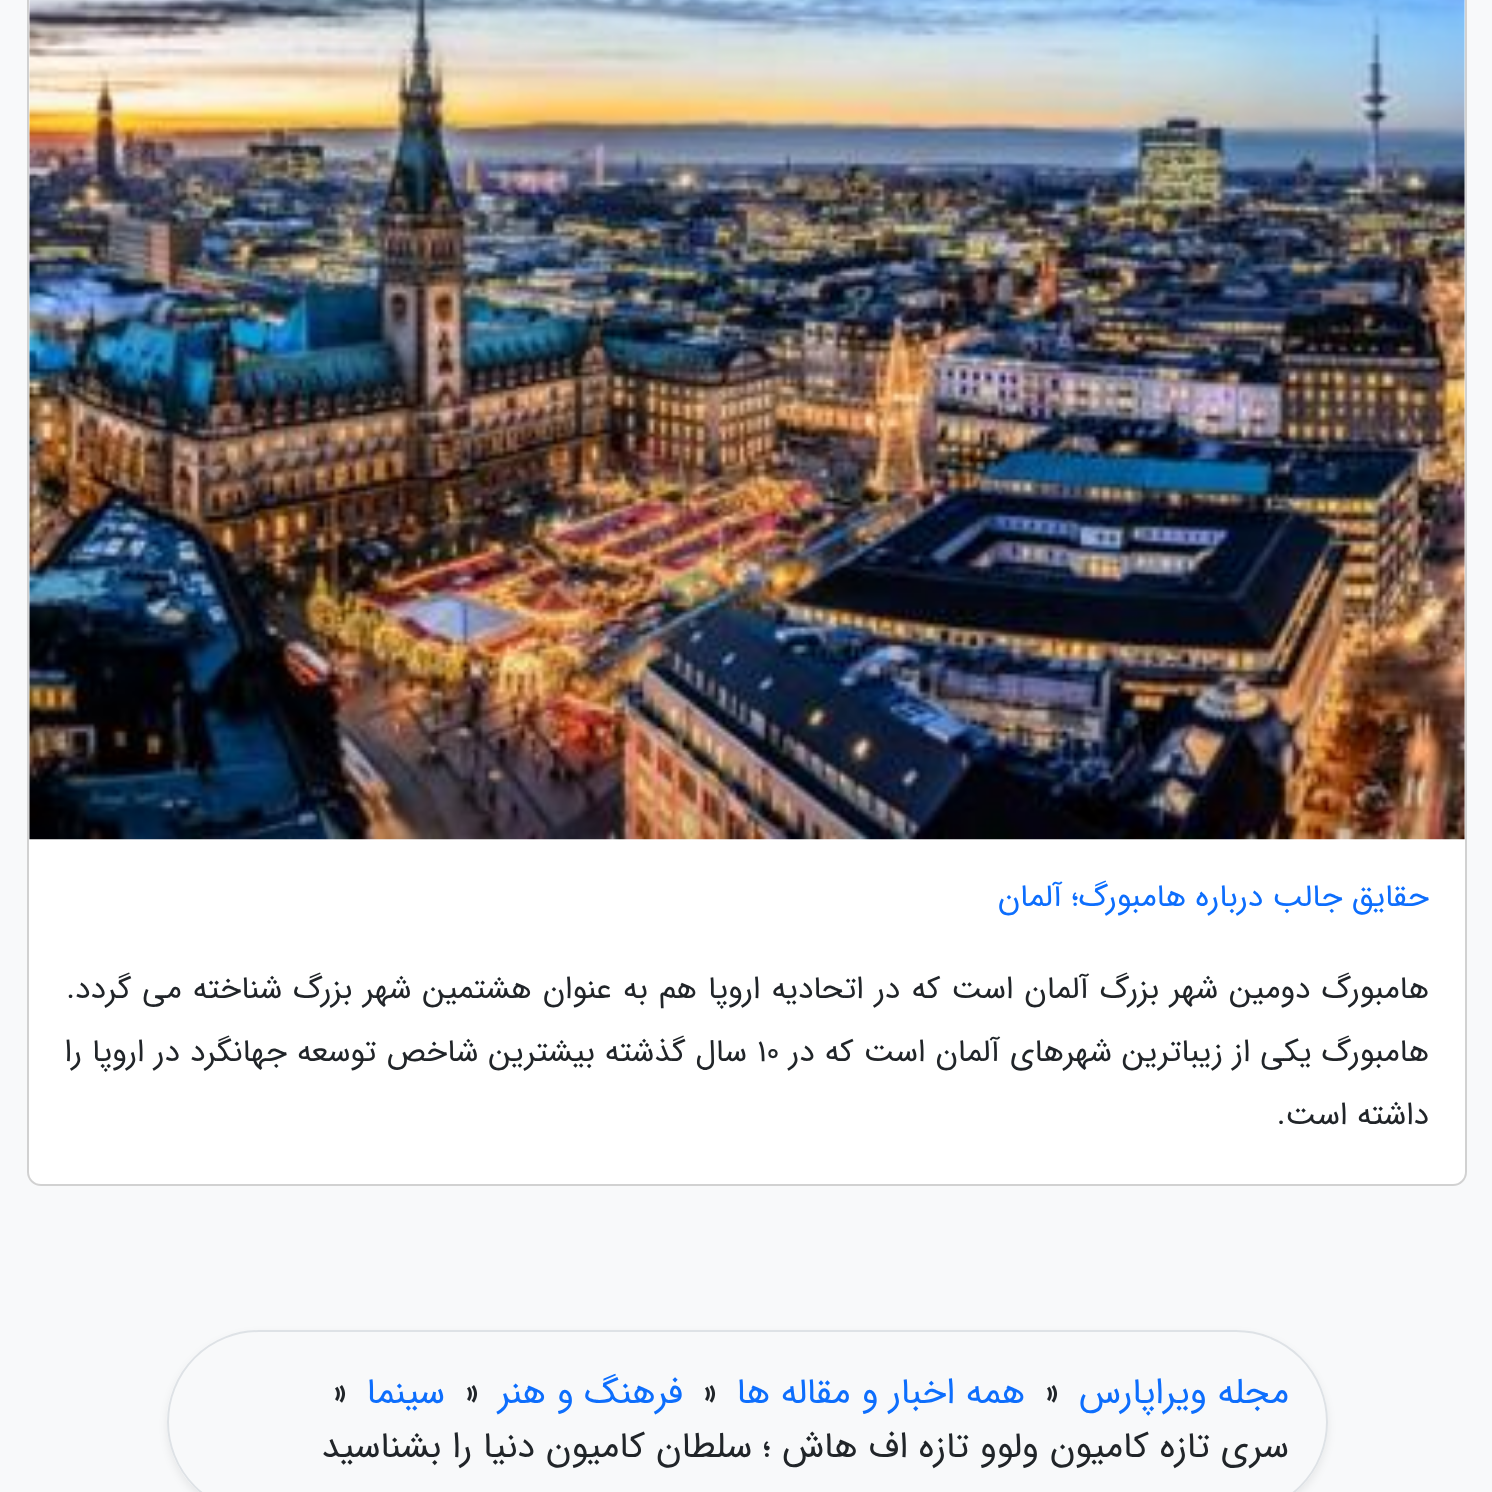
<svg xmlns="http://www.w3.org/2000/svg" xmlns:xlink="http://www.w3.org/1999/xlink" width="1492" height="1492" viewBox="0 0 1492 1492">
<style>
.cls-1{font:31.5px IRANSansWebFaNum;direction:rtl;fill:#0d6efd}
.cls-2{font:31.5px IRANSansWebFaNum;direction:rtl;fill:#212529}
.cls-3{font:31.5px IRANSansWebFaNum;fill:#212529}
.cls-4{font:36px IRANSansWebFaNum;direction:rtl;fill:#0d6efd}
.cls-5{font:36px IRANSansWebFaNum;fill:#212529}
.cls-6{font:36px IRANSansWebFaNum;direction:rtl;fill:#212529}
</style>
<defs>
<clipPath id="clip1"><path d="M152 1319H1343V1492H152ZM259 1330H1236C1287 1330 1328 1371 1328 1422C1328 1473 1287 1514 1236 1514H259C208 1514 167 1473 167 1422C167 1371 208 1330 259 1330Z" clip-rule="evenodd"/></clipPath>
</defs>
<rect width="100%" height="100%" fill="#f8f9fa"/>
<rect fill="#ffffff" x="27" y="-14" width="1440" height="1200" rx="14"/>
<rect fill="none" stroke="#000000" stroke-opacity="0.18" stroke-width="2" x="28" y="-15" width="1438" height="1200" rx="13"/>
<image xlink:href="image0.png" x="29" y="0" width="1436" height="840"/>
<g clip-path="url(#clip1)">
<rect fill="#000000" fill-opacity="0.07" filter="blur(4.5px)" x="167" y="1334" width="1161" height="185" rx="92.5"/>
</g>
<rect fill="none" stroke="#dee2e6" stroke-width="2" x="168" y="1331" width="1159" height="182" rx="91"/>
<text class="cls-1" x="1429" y="906">حقایق جالب درباره هامبورگ؛ آلمان</text>
<text class="cls-2" x="1429" y="998" word-spacing="1.6">هامبورگ دومین شهر بزرگ آلمان است که در اتحادیه اروپا هم به عنوان هشتمین شهر بزرگ شناخته می گردد.</text>
<text class="cls-2" x="1429" y="1061" word-spacing="0.5">هامبورگ یکی از زیباترین شهرهای آلمان است که در</text>
<text class="cls-3" x="757" y="1061">10</text>
<text class="cls-2" x="747" y="1061" word-spacing="0.5">سال گذشته بیشترین شاخص توسعه جهانگرد در اروپا را</text>
<text class="cls-2" x="1429" y="1124">داشته است.</text>
<text class="cls-4" x="1289" y="1403">مجله ویراپارس</text>
<text class="cls-5" x="1043" y="1403">»</text>
<text class="cls-4" x="1025" y="1403">همه اخبار و مقاله ها</text>
<text class="cls-5" x="701" y="1403">»</text>
<text class="cls-4" x="683" y="1403">فرهنگ و هنر</text>
<text class="cls-5" x="463" y="1403">»</text>
<text class="cls-4" x="445" y="1403">سینما</text>
<text class="cls-5" x="331" y="1403">»</text>
<text class="cls-6" x="1289" y="1457">سری تازه کامیون ولوو تازه اف هاش ؛ سلطان کامیون دنیا را بشناسید</text>
</svg>
